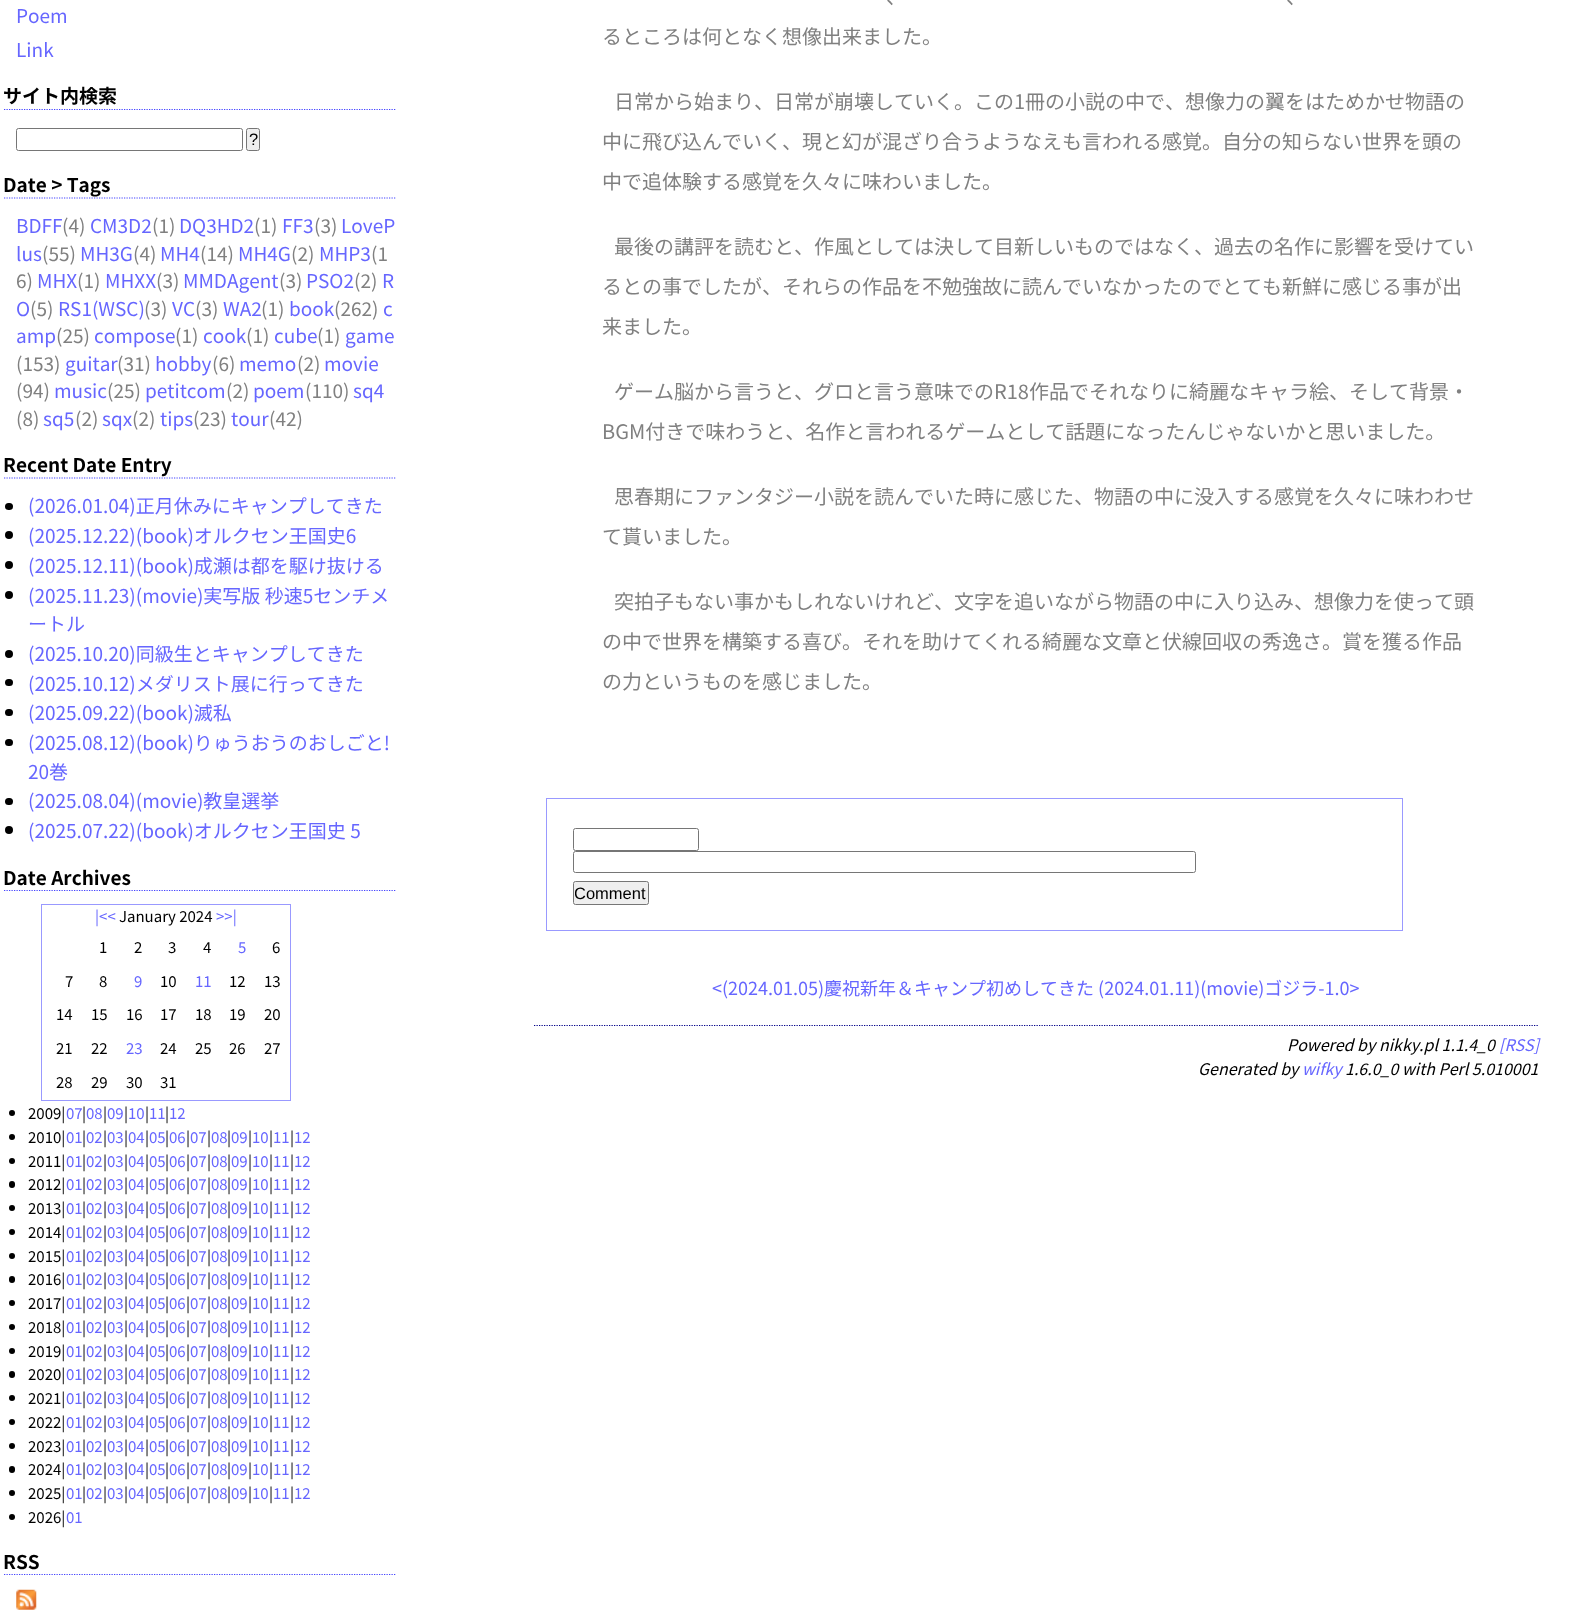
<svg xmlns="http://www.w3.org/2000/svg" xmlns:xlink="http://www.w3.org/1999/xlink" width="1569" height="1613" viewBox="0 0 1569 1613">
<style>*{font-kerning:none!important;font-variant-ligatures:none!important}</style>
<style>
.cls-1{font:19px Noto Sans JP;fill:#6666ff}
.cls-2{font:bold 19px Noto Sans JP;fill:#000000}
.cls-3{font:16.5px Liberation Sans;fill:#000000}
.cls-4{font:19px Noto Sans JP;fill:#808080}
.cls-5{font:15px Noto Sans JP;fill:#6666ff}
.cls-6{font:15px Noto Sans JP;fill:#000000}
.cls-7{font:20px Noto Sans JP;fill:#808080}
.cls-8{font:18px Noto Sans JP;fill:#6666ff}
.cls-9{font:italic 16px Noto Sans JP;fill:#000000}
.cls-10{font:italic 16px Noto Sans JP;fill:#6666ff}
</style>
<defs>
<clipPath id="clip1"><rect x="575" y="884" width="71" height="19"/></clipPath>
</defs>
<rect width="100%" height="100%" fill="#ffffff"/>
<path fill="none" stroke="#4444ff" stroke-width="1.2" stroke-dasharray="1.25 1.25" d="M4 109.5H396"/>
<rect fill="none" stroke="#767676" x="16.5" y="128.5" width="226" height="22" rx="2"/>
<rect fill="#efefef" stroke="#767676" x="246.5" y="128.5" width="13" height="22" rx="2"/>
<path fill="none" stroke="#4444ff" stroke-width="1.2" stroke-dasharray="1.25 1.25" d="M4 198H396"/>
<path fill="none" stroke="#4444ff" stroke-width="1.2" stroke-dasharray="1.25 1.25" d="M4 478H396"/>
<rect fill="#000000" x="5" y="503" width="8" height="7" rx="3.5"/>
<circle fill="#000000" cx="9" cy="535" r="4"/>
<circle fill="#000000" cx="9" cy="565" r="4"/>
<circle fill="#000000" cx="9" cy="595" r="4"/>
<circle fill="#000000" cx="9" cy="654" r="4"/>
<rect fill="#000000" x="5" y="679" width="8" height="7" rx="3.5"/>
<rect fill="#000000" x="5" y="709" width="8" height="7" rx="3.5"/>
<rect fill="#000000" x="5" y="739" width="8" height="7" rx="3.5"/>
<rect fill="#000000" x="5" y="798" width="8" height="7" rx="3.5"/>
<circle fill="#000000" cx="9" cy="830" r="4"/>
<path fill="none" stroke="#4444ff" stroke-width="1.2" stroke-dasharray="1.25 1.25" d="M4 890.5H396"/>
<rect fill="none" stroke="#9999ff" x="41.5" y="904.5" width="249" height="196"/>
<circle fill="#000000" cx="12" cy="1113" r="3"/>
<circle fill="#000000" cx="12" cy="1137" r="3"/>
<circle fill="#000000" cx="12" cy="1161" r="3"/>
<rect fill="#000000" x="9" y="1181" width="6" height="7" rx="3"/>
<circle fill="#000000" cx="12" cy="1208" r="3"/>
<circle fill="#000000" cx="12" cy="1232" r="3"/>
<circle fill="#000000" cx="12" cy="1256" r="3"/>
<rect fill="#000000" x="9" y="1276" width="6" height="7" rx="3"/>
<circle fill="#000000" cx="12" cy="1303" r="3"/>
<circle fill="#000000" cx="12" cy="1327" r="3"/>
<circle fill="#000000" cx="12" cy="1351" r="3"/>
<rect fill="#000000" x="9" y="1371" width="6" height="7" rx="3"/>
<circle fill="#000000" cx="12" cy="1398" r="3"/>
<circle fill="#000000" cx="12" cy="1422" r="3"/>
<circle fill="#000000" cx="12" cy="1446" r="3"/>
<rect fill="#000000" x="9" y="1466" width="6" height="7" rx="3"/>
<circle fill="#000000" cx="12" cy="1493" r="3"/>
<circle fill="#000000" cx="12" cy="1517" r="3"/>
<path fill="none" stroke="#4444ff" stroke-width="1.2" stroke-dasharray="1.25 1.25" d="M4 1574.5H396"/>
<image xlink:href="image0.png" x="16" y="1589" width="21" height="21"/>
<rect fill="none" stroke="#9999ff" x="546.5" y="798.5" width="856" height="132"/>
<rect fill="none" stroke="#767676" x="573.5" y="828.5" width="125" height="22" rx="2"/>
<rect fill="none" stroke="#767676" x="573.5" y="851.5" width="622" height="21" rx="2"/>
<rect fill="#efefef" stroke="#767676" x="573.5" y="881.5" width="75" height="23" rx="2"/>
<path fill="none" stroke="#000088" stroke-width="1.2" stroke-dasharray="1.25 1.25" d="M534 1025.5H1539"/>
<text class="cls-1"><tspan x="16" y="23">Poem</tspan><tspan x="16" y="57">Link</tspan></text>
<text class="cls-2" x="3" y="103">サイト内検索</text>
<text class="cls-3" x="249" y="145">?</text>
<text class="cls-2" x="3" y="192">Date &gt; Tags</text>
<text class="cls-1" x="16" y="233">BDFF</text>
<text class="cls-4" x="62" y="233">(4)</text>
<text class="cls-1" x="90" y="233">CM3D2</text>
<text class="cls-4" x="152" y="233">(1)</text>
<text class="cls-1" x="179" y="233">DQ3HD2</text>
<text class="cls-4" x="254" y="233">(1)</text>
<text class="cls-1" x="282" y="233">FF3</text>
<text class="cls-4" x="314" y="233">(3)</text>
<text class="cls-1" x="341" y="233">LoveP</text>
<text class="cls-1" x="16" y="261">lus</text>
<text class="cls-4" x="42" y="261">(55)</text>
<text class="cls-1" x="80" y="261">MH3G</text>
<text class="cls-4" x="133" y="261">(4)</text>
<text class="cls-1" x="160" y="261">MH4</text>
<text class="cls-4" x="200" y="261">(14)</text>
<text class="cls-1" x="238" y="261">MH4G</text>
<text class="cls-4" x="291" y="261">(2)</text>
<text class="cls-1" x="319" y="261">MHP3</text>
<text class="cls-4" x="371" y="261">(1</text>
<text class="cls-4" x="16" y="288">6)</text>
<text class="cls-1" x="37" y="288">MHX</text>
<text class="cls-4" x="77" y="288">(1)</text>
<text class="cls-1" x="105" y="288">MHXX</text>
<text class="cls-4" x="156" y="288">(3)</text>
<text class="cls-1" x="183" y="288">MMDAgent</text>
<text class="cls-4" x="279" y="288">(3)</text>
<text class="cls-1" x="306" y="288">PSO2</text>
<text class="cls-4" x="354" y="288">(2)</text>
<text class="cls-1" x="382" y="288">R</text>
<text class="cls-1" x="16" y="316">O</text>
<text class="cls-4" x="30" y="316">(5)</text>
<text class="cls-1" x="58" y="316">RS1(WSC)</text>
<text class="cls-4" x="144" y="316">(3)</text>
<text class="cls-1" x="172" y="316">VC</text>
<text class="cls-4" x="195" y="316">(3)</text>
<text class="cls-1" x="223" y="316">WA2</text>
<text class="cls-4" x="261" y="316">(1)</text>
<text class="cls-1" x="289" y="316">book</text>
<text class="cls-4" x="334" y="316">(262)</text>
<text class="cls-1" x="383" y="316">c</text>
<text class="cls-1" x="16" y="343">amp</text>
<text class="cls-4" x="56" y="343">(25)</text>
<text class="cls-1" x="94" y="343">compose</text>
<text class="cls-4" x="175" y="343">(1)</text>
<text class="cls-1" x="203" y="343">cook</text>
<text class="cls-4" x="246" y="343">(1)</text>
<text class="cls-1" x="274" y="343">cube</text>
<text class="cls-4" x="317" y="343">(1)</text>
<text class="cls-1" x="345" y="343">game</text>
<text class="cls-4" x="16" y="371">(153)</text>
<text class="cls-1" x="65" y="371">guitar</text>
<text class="cls-4" x="117" y="371">(31)</text>
<text class="cls-1" x="155" y="371">hobby</text>
<text class="cls-4" x="212" y="371">(6)</text>
<text class="cls-1" x="239" y="371">memo</text>
<text class="cls-4" x="297" y="371">(2)</text>
<text class="cls-1" x="324" y="371">movie</text>
<text class="cls-4" x="16" y="398">(94)</text>
<text class="cls-1" x="54" y="398">music</text>
<text class="cls-4" x="107" y="398">(25)</text>
<text class="cls-1" x="145" y="398">petitcom</text>
<text class="cls-4" x="226" y="398">(2)</text>
<text class="cls-1" x="253" y="398">poem</text>
<text class="cls-4" x="305" y="398">(110)</text>
<text class="cls-1" x="353" y="398">sq4</text>
<text class="cls-4" x="16" y="426">(8)</text>
<text class="cls-1" x="43" y="426">sq5</text>
<text class="cls-4" x="75" y="426">(2)</text>
<text class="cls-1" x="102" y="426">sqx</text>
<text class="cls-4" x="132" y="426">(2)</text>
<text class="cls-1" x="160" y="426">tips</text>
<text class="cls-4" x="193" y="426">(23)</text>
<text class="cls-1" x="231" y="426">tour</text>
<text class="cls-4" x="269" y="426">(42)</text>
<text class="cls-2" x="3" y="472">Recent Date Entry</text>
<text class="cls-1"><tspan x="28" y="513">(2026.01.04)正月休みにキャンプしてきた</tspan><tspan x="28" y="543">(2025.12.22)(book)オルクセン王国史6</tspan><tspan x="28" y="573">(2025.12.11)(book)成瀬は都を駆け抜ける</tspan><tspan x="28" y="603">(2025.11.23)(movie)実写版 秒速5センチメ</tspan><tspan x="28" y="631">ートル</tspan><tspan x="28" y="661">(2025.10.20)同級生とキャンプしてきた</tspan><tspan x="28" y="691">(2025.10.12)メダリスト展に行ってきた</tspan><tspan x="28" y="720">(2025.09.22)(book)滅私</tspan><tspan x="28" y="750">(2025.08.12)(book)りゅうおうのおしごと!</tspan><tspan x="28" y="779">20巻</tspan><tspan x="28" y="808">(2025.08.04)(movie)教皇選挙</tspan><tspan x="28" y="838">(2025.07.22)(book)オルクセン王国史 5</tspan></text>
<text class="cls-2" x="3" y="885">Date Archives</text>
<text class="cls-5" x="95" y="922">|&lt;&lt;</text>
<text class="cls-6" x="119" y="922">January 2024</text>
<text class="cls-5" x="216" y="922">&gt;&gt;|</text>
<text class="cls-6" x="99" y="953">1</text>
<text class="cls-6" x="134" y="953">2</text>
<text class="cls-6" x="168" y="953">3</text>
<text class="cls-6" x="203" y="953">4</text>
<text class="cls-5" x="238" y="953">5</text>
<text class="cls-6" x="272" y="953">6</text>
<text class="cls-6" x="65" y="987">7</text>
<text class="cls-6" x="99" y="987">8</text>
<text class="cls-5" x="134" y="987">9</text>
<text class="cls-6" x="160" y="987">10</text>
<text class="cls-5" x="195" y="987">11</text>
<text class="cls-6" x="229" y="987">12</text>
<text class="cls-6" x="264" y="987">13</text>
<text class="cls-6" x="56" y="1020">14</text>
<text class="cls-6" x="91" y="1020">15</text>
<text class="cls-6" x="126" y="1020">16</text>
<text class="cls-6" x="160" y="1020">17</text>
<text class="cls-6" x="195" y="1020">18</text>
<text class="cls-6" x="229" y="1020">19</text>
<text class="cls-6" x="264" y="1020">20</text>
<text class="cls-6" x="56" y="1054">21</text>
<text class="cls-6" x="91" y="1054">22</text>
<text class="cls-5" x="126" y="1054">23</text>
<text class="cls-6" x="160" y="1054">24</text>
<text class="cls-6" x="195" y="1054">25</text>
<text class="cls-6" x="229" y="1054">26</text>
<text class="cls-6" x="264" y="1054">27</text>
<text class="cls-6" x="56" y="1088">28</text>
<text class="cls-6" x="91" y="1088">29</text>
<text class="cls-6" x="126" y="1088">30</text>
<text class="cls-6" x="160" y="1088">31</text>
<text class="cls-6" x="28" y="1119">2009|</text>
<text class="cls-5" x="66" y="1119">07</text>
<text class="cls-6" x="82" y="1119">|</text>
<text class="cls-5" x="86" y="1119">08</text>
<text class="cls-6" x="103" y="1119">|</text>
<text class="cls-5" x="107" y="1119">09</text>
<text class="cls-6" x="124" y="1119">|</text>
<text class="cls-5" x="128" y="1119">10</text>
<text class="cls-6" x="145" y="1119">|</text>
<text class="cls-5" x="149" y="1119">11</text>
<text class="cls-6" x="165" y="1119">|</text>
<text class="cls-5" x="169" y="1119">12</text>
<text class="cls-6" x="28" y="1143">2010|</text>
<text class="cls-5" x="66" y="1143">01</text>
<text class="cls-6" x="82" y="1143">|</text>
<text class="cls-5" x="86" y="1143">02</text>
<text class="cls-6" x="103" y="1143">|</text>
<text class="cls-5" x="107" y="1143">03</text>
<text class="cls-6" x="124" y="1143">|</text>
<text class="cls-5" x="128" y="1143">04</text>
<text class="cls-6" x="145" y="1143">|</text>
<text class="cls-5" x="149" y="1143">05</text>
<text class="cls-6" x="165" y="1143">|</text>
<text class="cls-5" x="169" y="1143">06</text>
<text class="cls-6" x="186" y="1143">|</text>
<text class="cls-5" x="190" y="1143">07</text>
<text class="cls-6" x="207" y="1143">|</text>
<text class="cls-5" x="211" y="1143">08</text>
<text class="cls-6" x="227" y="1143">|</text>
<text class="cls-5" x="231" y="1143">09</text>
<text class="cls-6" x="248" y="1143">|</text>
<text class="cls-5" x="252" y="1143">10</text>
<text class="cls-6" x="269" y="1143">|</text>
<text class="cls-5" x="273" y="1143">11</text>
<text class="cls-6" x="290" y="1143">|</text>
<text class="cls-5" x="294" y="1143">12</text>
<text class="cls-6" x="28" y="1167">2011|</text>
<text class="cls-5" x="66" y="1167">01</text>
<text class="cls-6" x="82" y="1167">|</text>
<text class="cls-5" x="86" y="1167">02</text>
<text class="cls-6" x="103" y="1167">|</text>
<text class="cls-5" x="107" y="1167">03</text>
<text class="cls-6" x="124" y="1167">|</text>
<text class="cls-5" x="128" y="1167">04</text>
<text class="cls-6" x="145" y="1167">|</text>
<text class="cls-5" x="149" y="1167">05</text>
<text class="cls-6" x="165" y="1167">|</text>
<text class="cls-5" x="169" y="1167">06</text>
<text class="cls-6" x="186" y="1167">|</text>
<text class="cls-5" x="190" y="1167">07</text>
<text class="cls-6" x="207" y="1167">|</text>
<text class="cls-5" x="211" y="1167">08</text>
<text class="cls-6" x="227" y="1167">|</text>
<text class="cls-5" x="231" y="1167">09</text>
<text class="cls-6" x="248" y="1167">|</text>
<text class="cls-5" x="252" y="1167">10</text>
<text class="cls-6" x="269" y="1167">|</text>
<text class="cls-5" x="273" y="1167">11</text>
<text class="cls-6" x="290" y="1167">|</text>
<text class="cls-5" x="294" y="1167">12</text>
<text class="cls-6" x="28" y="1190">2012|</text>
<text class="cls-5" x="66" y="1190">01</text>
<text class="cls-6" x="82" y="1190">|</text>
<text class="cls-5" x="86" y="1190">02</text>
<text class="cls-6" x="103" y="1190">|</text>
<text class="cls-5" x="107" y="1190">03</text>
<text class="cls-6" x="124" y="1190">|</text>
<text class="cls-5" x="128" y="1190">04</text>
<text class="cls-6" x="145" y="1190">|</text>
<text class="cls-5" x="149" y="1190">05</text>
<text class="cls-6" x="165" y="1190">|</text>
<text class="cls-5" x="169" y="1190">06</text>
<text class="cls-6" x="186" y="1190">|</text>
<text class="cls-5" x="190" y="1190">07</text>
<text class="cls-6" x="207" y="1190">|</text>
<text class="cls-5" x="211" y="1190">08</text>
<text class="cls-6" x="227" y="1190">|</text>
<text class="cls-5" x="231" y="1190">09</text>
<text class="cls-6" x="248" y="1190">|</text>
<text class="cls-5" x="252" y="1190">10</text>
<text class="cls-6" x="269" y="1190">|</text>
<text class="cls-5" x="273" y="1190">11</text>
<text class="cls-6" x="290" y="1190">|</text>
<text class="cls-5" x="294" y="1190">12</text>
<text class="cls-6" x="28" y="1214">2013|</text>
<text class="cls-5" x="66" y="1214">01</text>
<text class="cls-6" x="82" y="1214">|</text>
<text class="cls-5" x="86" y="1214">02</text>
<text class="cls-6" x="103" y="1214">|</text>
<text class="cls-5" x="107" y="1214">03</text>
<text class="cls-6" x="124" y="1214">|</text>
<text class="cls-5" x="128" y="1214">04</text>
<text class="cls-6" x="145" y="1214">|</text>
<text class="cls-5" x="149" y="1214">05</text>
<text class="cls-6" x="165" y="1214">|</text>
<text class="cls-5" x="169" y="1214">06</text>
<text class="cls-6" x="186" y="1214">|</text>
<text class="cls-5" x="190" y="1214">07</text>
<text class="cls-6" x="207" y="1214">|</text>
<text class="cls-5" x="211" y="1214">08</text>
<text class="cls-6" x="227" y="1214">|</text>
<text class="cls-5" x="231" y="1214">09</text>
<text class="cls-6" x="248" y="1214">|</text>
<text class="cls-5" x="252" y="1214">10</text>
<text class="cls-6" x="269" y="1214">|</text>
<text class="cls-5" x="273" y="1214">11</text>
<text class="cls-6" x="290" y="1214">|</text>
<text class="cls-5" x="294" y="1214">12</text>
<text class="cls-6" x="28" y="1238">2014|</text>
<text class="cls-5" x="66" y="1238">01</text>
<text class="cls-6" x="82" y="1238">|</text>
<text class="cls-5" x="86" y="1238">02</text>
<text class="cls-6" x="103" y="1238">|</text>
<text class="cls-5" x="107" y="1238">03</text>
<text class="cls-6" x="124" y="1238">|</text>
<text class="cls-5" x="128" y="1238">04</text>
<text class="cls-6" x="145" y="1238">|</text>
<text class="cls-5" x="149" y="1238">05</text>
<text class="cls-6" x="165" y="1238">|</text>
<text class="cls-5" x="169" y="1238">06</text>
<text class="cls-6" x="186" y="1238">|</text>
<text class="cls-5" x="190" y="1238">07</text>
<text class="cls-6" x="207" y="1238">|</text>
<text class="cls-5" x="211" y="1238">08</text>
<text class="cls-6" x="227" y="1238">|</text>
<text class="cls-5" x="231" y="1238">09</text>
<text class="cls-6" x="248" y="1238">|</text>
<text class="cls-5" x="252" y="1238">10</text>
<text class="cls-6" x="269" y="1238">|</text>
<text class="cls-5" x="273" y="1238">11</text>
<text class="cls-6" x="290" y="1238">|</text>
<text class="cls-5" x="294" y="1238">12</text>
<text class="cls-6" x="28" y="1262">2015|</text>
<text class="cls-5" x="66" y="1262">01</text>
<text class="cls-6" x="82" y="1262">|</text>
<text class="cls-5" x="86" y="1262">02</text>
<text class="cls-6" x="103" y="1262">|</text>
<text class="cls-5" x="107" y="1262">03</text>
<text class="cls-6" x="124" y="1262">|</text>
<text class="cls-5" x="128" y="1262">04</text>
<text class="cls-6" x="145" y="1262">|</text>
<text class="cls-5" x="149" y="1262">05</text>
<text class="cls-6" x="165" y="1262">|</text>
<text class="cls-5" x="169" y="1262">06</text>
<text class="cls-6" x="186" y="1262">|</text>
<text class="cls-5" x="190" y="1262">07</text>
<text class="cls-6" x="207" y="1262">|</text>
<text class="cls-5" x="211" y="1262">08</text>
<text class="cls-6" x="227" y="1262">|</text>
<text class="cls-5" x="231" y="1262">09</text>
<text class="cls-6" x="248" y="1262">|</text>
<text class="cls-5" x="252" y="1262">10</text>
<text class="cls-6" x="269" y="1262">|</text>
<text class="cls-5" x="273" y="1262">11</text>
<text class="cls-6" x="290" y="1262">|</text>
<text class="cls-5" x="294" y="1262">12</text>
<text class="cls-6" x="28" y="1285">2016|</text>
<text class="cls-5" x="66" y="1285">01</text>
<text class="cls-6" x="82" y="1285">|</text>
<text class="cls-5" x="86" y="1285">02</text>
<text class="cls-6" x="103" y="1285">|</text>
<text class="cls-5" x="107" y="1285">03</text>
<text class="cls-6" x="124" y="1285">|</text>
<text class="cls-5" x="128" y="1285">04</text>
<text class="cls-6" x="145" y="1285">|</text>
<text class="cls-5" x="149" y="1285">05</text>
<text class="cls-6" x="165" y="1285">|</text>
<text class="cls-5" x="169" y="1285">06</text>
<text class="cls-6" x="186" y="1285">|</text>
<text class="cls-5" x="190" y="1285">07</text>
<text class="cls-6" x="207" y="1285">|</text>
<text class="cls-5" x="211" y="1285">08</text>
<text class="cls-6" x="227" y="1285">|</text>
<text class="cls-5" x="231" y="1285">09</text>
<text class="cls-6" x="248" y="1285">|</text>
<text class="cls-5" x="252" y="1285">10</text>
<text class="cls-6" x="269" y="1285">|</text>
<text class="cls-5" x="273" y="1285">11</text>
<text class="cls-6" x="290" y="1285">|</text>
<text class="cls-5" x="294" y="1285">12</text>
<text class="cls-6" x="28" y="1309">2017|</text>
<text class="cls-5" x="66" y="1309">01</text>
<text class="cls-6" x="82" y="1309">|</text>
<text class="cls-5" x="86" y="1309">02</text>
<text class="cls-6" x="103" y="1309">|</text>
<text class="cls-5" x="107" y="1309">03</text>
<text class="cls-6" x="124" y="1309">|</text>
<text class="cls-5" x="128" y="1309">04</text>
<text class="cls-6" x="145" y="1309">|</text>
<text class="cls-5" x="149" y="1309">05</text>
<text class="cls-6" x="165" y="1309">|</text>
<text class="cls-5" x="169" y="1309">06</text>
<text class="cls-6" x="186" y="1309">|</text>
<text class="cls-5" x="190" y="1309">07</text>
<text class="cls-6" x="207" y="1309">|</text>
<text class="cls-5" x="211" y="1309">08</text>
<text class="cls-6" x="227" y="1309">|</text>
<text class="cls-5" x="231" y="1309">09</text>
<text class="cls-6" x="248" y="1309">|</text>
<text class="cls-5" x="252" y="1309">10</text>
<text class="cls-6" x="269" y="1309">|</text>
<text class="cls-5" x="273" y="1309">11</text>
<text class="cls-6" x="290" y="1309">|</text>
<text class="cls-5" x="294" y="1309">12</text>
<text class="cls-6" x="28" y="1333">2018|</text>
<text class="cls-5" x="66" y="1333">01</text>
<text class="cls-6" x="82" y="1333">|</text>
<text class="cls-5" x="86" y="1333">02</text>
<text class="cls-6" x="103" y="1333">|</text>
<text class="cls-5" x="107" y="1333">03</text>
<text class="cls-6" x="124" y="1333">|</text>
<text class="cls-5" x="128" y="1333">04</text>
<text class="cls-6" x="145" y="1333">|</text>
<text class="cls-5" x="149" y="1333">05</text>
<text class="cls-6" x="165" y="1333">|</text>
<text class="cls-5" x="169" y="1333">06</text>
<text class="cls-6" x="186" y="1333">|</text>
<text class="cls-5" x="190" y="1333">07</text>
<text class="cls-6" x="207" y="1333">|</text>
<text class="cls-5" x="211" y="1333">08</text>
<text class="cls-6" x="227" y="1333">|</text>
<text class="cls-5" x="231" y="1333">09</text>
<text class="cls-6" x="248" y="1333">|</text>
<text class="cls-5" x="252" y="1333">10</text>
<text class="cls-6" x="269" y="1333">|</text>
<text class="cls-5" x="273" y="1333">11</text>
<text class="cls-6" x="290" y="1333">|</text>
<text class="cls-5" x="294" y="1333">12</text>
<text class="cls-6" x="28" y="1357">2019|</text>
<text class="cls-5" x="66" y="1357">01</text>
<text class="cls-6" x="82" y="1357">|</text>
<text class="cls-5" x="86" y="1357">02</text>
<text class="cls-6" x="103" y="1357">|</text>
<text class="cls-5" x="107" y="1357">03</text>
<text class="cls-6" x="124" y="1357">|</text>
<text class="cls-5" x="128" y="1357">04</text>
<text class="cls-6" x="145" y="1357">|</text>
<text class="cls-5" x="149" y="1357">05</text>
<text class="cls-6" x="165" y="1357">|</text>
<text class="cls-5" x="169" y="1357">06</text>
<text class="cls-6" x="186" y="1357">|</text>
<text class="cls-5" x="190" y="1357">07</text>
<text class="cls-6" x="207" y="1357">|</text>
<text class="cls-5" x="211" y="1357">08</text>
<text class="cls-6" x="227" y="1357">|</text>
<text class="cls-5" x="231" y="1357">09</text>
<text class="cls-6" x="248" y="1357">|</text>
<text class="cls-5" x="252" y="1357">10</text>
<text class="cls-6" x="269" y="1357">|</text>
<text class="cls-5" x="273" y="1357">11</text>
<text class="cls-6" x="290" y="1357">|</text>
<text class="cls-5" x="294" y="1357">12</text>
<text class="cls-6" x="28" y="1380">2020|</text>
<text class="cls-5" x="66" y="1380">01</text>
<text class="cls-6" x="82" y="1380">|</text>
<text class="cls-5" x="86" y="1380">02</text>
<text class="cls-6" x="103" y="1380">|</text>
<text class="cls-5" x="107" y="1380">03</text>
<text class="cls-6" x="124" y="1380">|</text>
<text class="cls-5" x="128" y="1380">04</text>
<text class="cls-6" x="145" y="1380">|</text>
<text class="cls-5" x="149" y="1380">05</text>
<text class="cls-6" x="165" y="1380">|</text>
<text class="cls-5" x="169" y="1380">06</text>
<text class="cls-6" x="186" y="1380">|</text>
<text class="cls-5" x="190" y="1380">07</text>
<text class="cls-6" x="207" y="1380">|</text>
<text class="cls-5" x="211" y="1380">08</text>
<text class="cls-6" x="227" y="1380">|</text>
<text class="cls-5" x="231" y="1380">09</text>
<text class="cls-6" x="248" y="1380">|</text>
<text class="cls-5" x="252" y="1380">10</text>
<text class="cls-6" x="269" y="1380">|</text>
<text class="cls-5" x="273" y="1380">11</text>
<text class="cls-6" x="290" y="1380">|</text>
<text class="cls-5" x="294" y="1380">12</text>
<text class="cls-6" x="28" y="1404">2021|</text>
<text class="cls-5" x="66" y="1404">01</text>
<text class="cls-6" x="82" y="1404">|</text>
<text class="cls-5" x="86" y="1404">02</text>
<text class="cls-6" x="103" y="1404">|</text>
<text class="cls-5" x="107" y="1404">03</text>
<text class="cls-6" x="124" y="1404">|</text>
<text class="cls-5" x="128" y="1404">04</text>
<text class="cls-6" x="145" y="1404">|</text>
<text class="cls-5" x="149" y="1404">05</text>
<text class="cls-6" x="165" y="1404">|</text>
<text class="cls-5" x="169" y="1404">06</text>
<text class="cls-6" x="186" y="1404">|</text>
<text class="cls-5" x="190" y="1404">07</text>
<text class="cls-6" x="207" y="1404">|</text>
<text class="cls-5" x="211" y="1404">08</text>
<text class="cls-6" x="227" y="1404">|</text>
<text class="cls-5" x="231" y="1404">09</text>
<text class="cls-6" x="248" y="1404">|</text>
<text class="cls-5" x="252" y="1404">10</text>
<text class="cls-6" x="269" y="1404">|</text>
<text class="cls-5" x="273" y="1404">11</text>
<text class="cls-6" x="290" y="1404">|</text>
<text class="cls-5" x="294" y="1404">12</text>
<text class="cls-6" x="28" y="1428">2022|</text>
<text class="cls-5" x="66" y="1428">01</text>
<text class="cls-6" x="82" y="1428">|</text>
<text class="cls-5" x="86" y="1428">02</text>
<text class="cls-6" x="103" y="1428">|</text>
<text class="cls-5" x="107" y="1428">03</text>
<text class="cls-6" x="124" y="1428">|</text>
<text class="cls-5" x="128" y="1428">04</text>
<text class="cls-6" x="145" y="1428">|</text>
<text class="cls-5" x="149" y="1428">05</text>
<text class="cls-6" x="165" y="1428">|</text>
<text class="cls-5" x="169" y="1428">06</text>
<text class="cls-6" x="186" y="1428">|</text>
<text class="cls-5" x="190" y="1428">07</text>
<text class="cls-6" x="207" y="1428">|</text>
<text class="cls-5" x="211" y="1428">08</text>
<text class="cls-6" x="227" y="1428">|</text>
<text class="cls-5" x="231" y="1428">09</text>
<text class="cls-6" x="248" y="1428">|</text>
<text class="cls-5" x="252" y="1428">10</text>
<text class="cls-6" x="269" y="1428">|</text>
<text class="cls-5" x="273" y="1428">11</text>
<text class="cls-6" x="290" y="1428">|</text>
<text class="cls-5" x="294" y="1428">12</text>
<text class="cls-6" x="28" y="1452">2023|</text>
<text class="cls-5" x="66" y="1452">01</text>
<text class="cls-6" x="82" y="1452">|</text>
<text class="cls-5" x="86" y="1452">02</text>
<text class="cls-6" x="103" y="1452">|</text>
<text class="cls-5" x="107" y="1452">03</text>
<text class="cls-6" x="124" y="1452">|</text>
<text class="cls-5" x="128" y="1452">04</text>
<text class="cls-6" x="145" y="1452">|</text>
<text class="cls-5" x="149" y="1452">05</text>
<text class="cls-6" x="165" y="1452">|</text>
<text class="cls-5" x="169" y="1452">06</text>
<text class="cls-6" x="186" y="1452">|</text>
<text class="cls-5" x="190" y="1452">07</text>
<text class="cls-6" x="207" y="1452">|</text>
<text class="cls-5" x="211" y="1452">08</text>
<text class="cls-6" x="227" y="1452">|</text>
<text class="cls-5" x="231" y="1452">09</text>
<text class="cls-6" x="248" y="1452">|</text>
<text class="cls-5" x="252" y="1452">10</text>
<text class="cls-6" x="269" y="1452">|</text>
<text class="cls-5" x="273" y="1452">11</text>
<text class="cls-6" x="290" y="1452">|</text>
<text class="cls-5" x="294" y="1452">12</text>
<text class="cls-6" x="28" y="1475">2024|</text>
<text class="cls-5" x="66" y="1475">01</text>
<text class="cls-6" x="82" y="1475">|</text>
<text class="cls-5" x="86" y="1475">02</text>
<text class="cls-6" x="103" y="1475">|</text>
<text class="cls-5" x="107" y="1475">03</text>
<text class="cls-6" x="124" y="1475">|</text>
<text class="cls-5" x="128" y="1475">04</text>
<text class="cls-6" x="145" y="1475">|</text>
<text class="cls-5" x="149" y="1475">05</text>
<text class="cls-6" x="165" y="1475">|</text>
<text class="cls-5" x="169" y="1475">06</text>
<text class="cls-6" x="186" y="1475">|</text>
<text class="cls-5" x="190" y="1475">07</text>
<text class="cls-6" x="207" y="1475">|</text>
<text class="cls-5" x="211" y="1475">08</text>
<text class="cls-6" x="227" y="1475">|</text>
<text class="cls-5" x="231" y="1475">09</text>
<text class="cls-6" x="248" y="1475">|</text>
<text class="cls-5" x="252" y="1475">10</text>
<text class="cls-6" x="269" y="1475">|</text>
<text class="cls-5" x="273" y="1475">11</text>
<text class="cls-6" x="290" y="1475">|</text>
<text class="cls-5" x="294" y="1475">12</text>
<text class="cls-6" x="28" y="1499">2025|</text>
<text class="cls-5" x="66" y="1499">01</text>
<text class="cls-6" x="82" y="1499">|</text>
<text class="cls-5" x="86" y="1499">02</text>
<text class="cls-6" x="103" y="1499">|</text>
<text class="cls-5" x="107" y="1499">03</text>
<text class="cls-6" x="124" y="1499">|</text>
<text class="cls-5" x="128" y="1499">04</text>
<text class="cls-6" x="145" y="1499">|</text>
<text class="cls-5" x="149" y="1499">05</text>
<text class="cls-6" x="165" y="1499">|</text>
<text class="cls-5" x="169" y="1499">06</text>
<text class="cls-6" x="186" y="1499">|</text>
<text class="cls-5" x="190" y="1499">07</text>
<text class="cls-6" x="207" y="1499">|</text>
<text class="cls-5" x="211" y="1499">08</text>
<text class="cls-6" x="227" y="1499">|</text>
<text class="cls-5" x="231" y="1499">09</text>
<text class="cls-6" x="248" y="1499">|</text>
<text class="cls-5" x="252" y="1499">10</text>
<text class="cls-6" x="269" y="1499">|</text>
<text class="cls-5" x="273" y="1499">11</text>
<text class="cls-6" x="290" y="1499">|</text>
<text class="cls-5" x="294" y="1499">12</text>
<text class="cls-6" x="28" y="1523">2026|</text>
<text class="cls-5" x="66" y="1523">01</text>
<text class="cls-2" x="3" y="1569">RSS</text>
<text class="cls-7" x="886" y="4">、</text>
<text class="cls-7" x="1286" y="4">、</text>
<text class="cls-7" x="602" y="44">るところは何となく想像出来ました。</text>
<text class="cls-7" x="614" y="109">日常から始まり、日常が崩壊していく。この1冊の小説の中で、想像力の翼をはためかせ物語の</text>
<text class="cls-7" x="602" y="149">中に飛び込んでいく、現と幻が混ざり合うようなえも言われる感覚。自分の知らない世界を頭の</text>
<text class="cls-7" x="602" y="189">中で追体験する感覚を久々に味わいました。</text>
<text class="cls-7" x="614" y="254">最後の講評を読むと、作風としては決して目新しいものではなく、過去の名作に影響を受けてい</text>
<text class="cls-7" x="602" y="294">るとの事でしたが、それらの作品を不勉強故に読んでいなかったのでとても新鮮に感じる事が出</text>
<text class="cls-7" x="602" y="334">来ました。</text>
<text class="cls-7" x="614" y="399">ゲーム脳から言うと、グロと言う意味でのR18作品でそれなりに綺麗なキャラ絵、そして背景・</text>
<text class="cls-7" x="602" y="439">BGM付きで味わうと、名作と言われるゲームとして話題になったんじゃないかと思いました。</text>
<text class="cls-7" x="614" y="504">思春期にファンタジー小説を読んでいた時に感じた、物語の中に没入する感覚を久々に味わわせ</text>
<text class="cls-7" x="602" y="544">て貰いました。</text>
<text class="cls-7" x="614" y="609">突拍子もない事かもしれないけれど、文字を追いながら物語の中に入り込み、想像力を使って頭</text>
<text class="cls-7" x="602" y="649">の中で世界を構築する喜び。それを助けてくれる綺麗な文章と伏線回収の秀逸さ。賞を獲る作品</text>
<text class="cls-7" x="602" y="689">の力というものを感じました。</text>
<g clip-path="url(#clip1)">
<text class="cls-3" x="574" y="899">Comment</text>
</g>
<text class="cls-8" x="712" y="995">&lt;(2024.01.05)慶祝新年＆キャンプ初めしてきた (2024.01.11)(movie)ゴジラ-1.0&gt;</text>
<text class="cls-9" x="1287" y="1051">Powered by nikky.pl 1.1.4_0</text>
<text class="cls-10" x="1499" y="1051">[RSS]</text>
<text class="cls-9" x="1198" y="1075">Generated by</text>
<text class="cls-10" x="1302" y="1075">wifky</text>
<text class="cls-9" x="1345" y="1075">1.6.0_0 with Perl 5.010001</text>
</svg>
